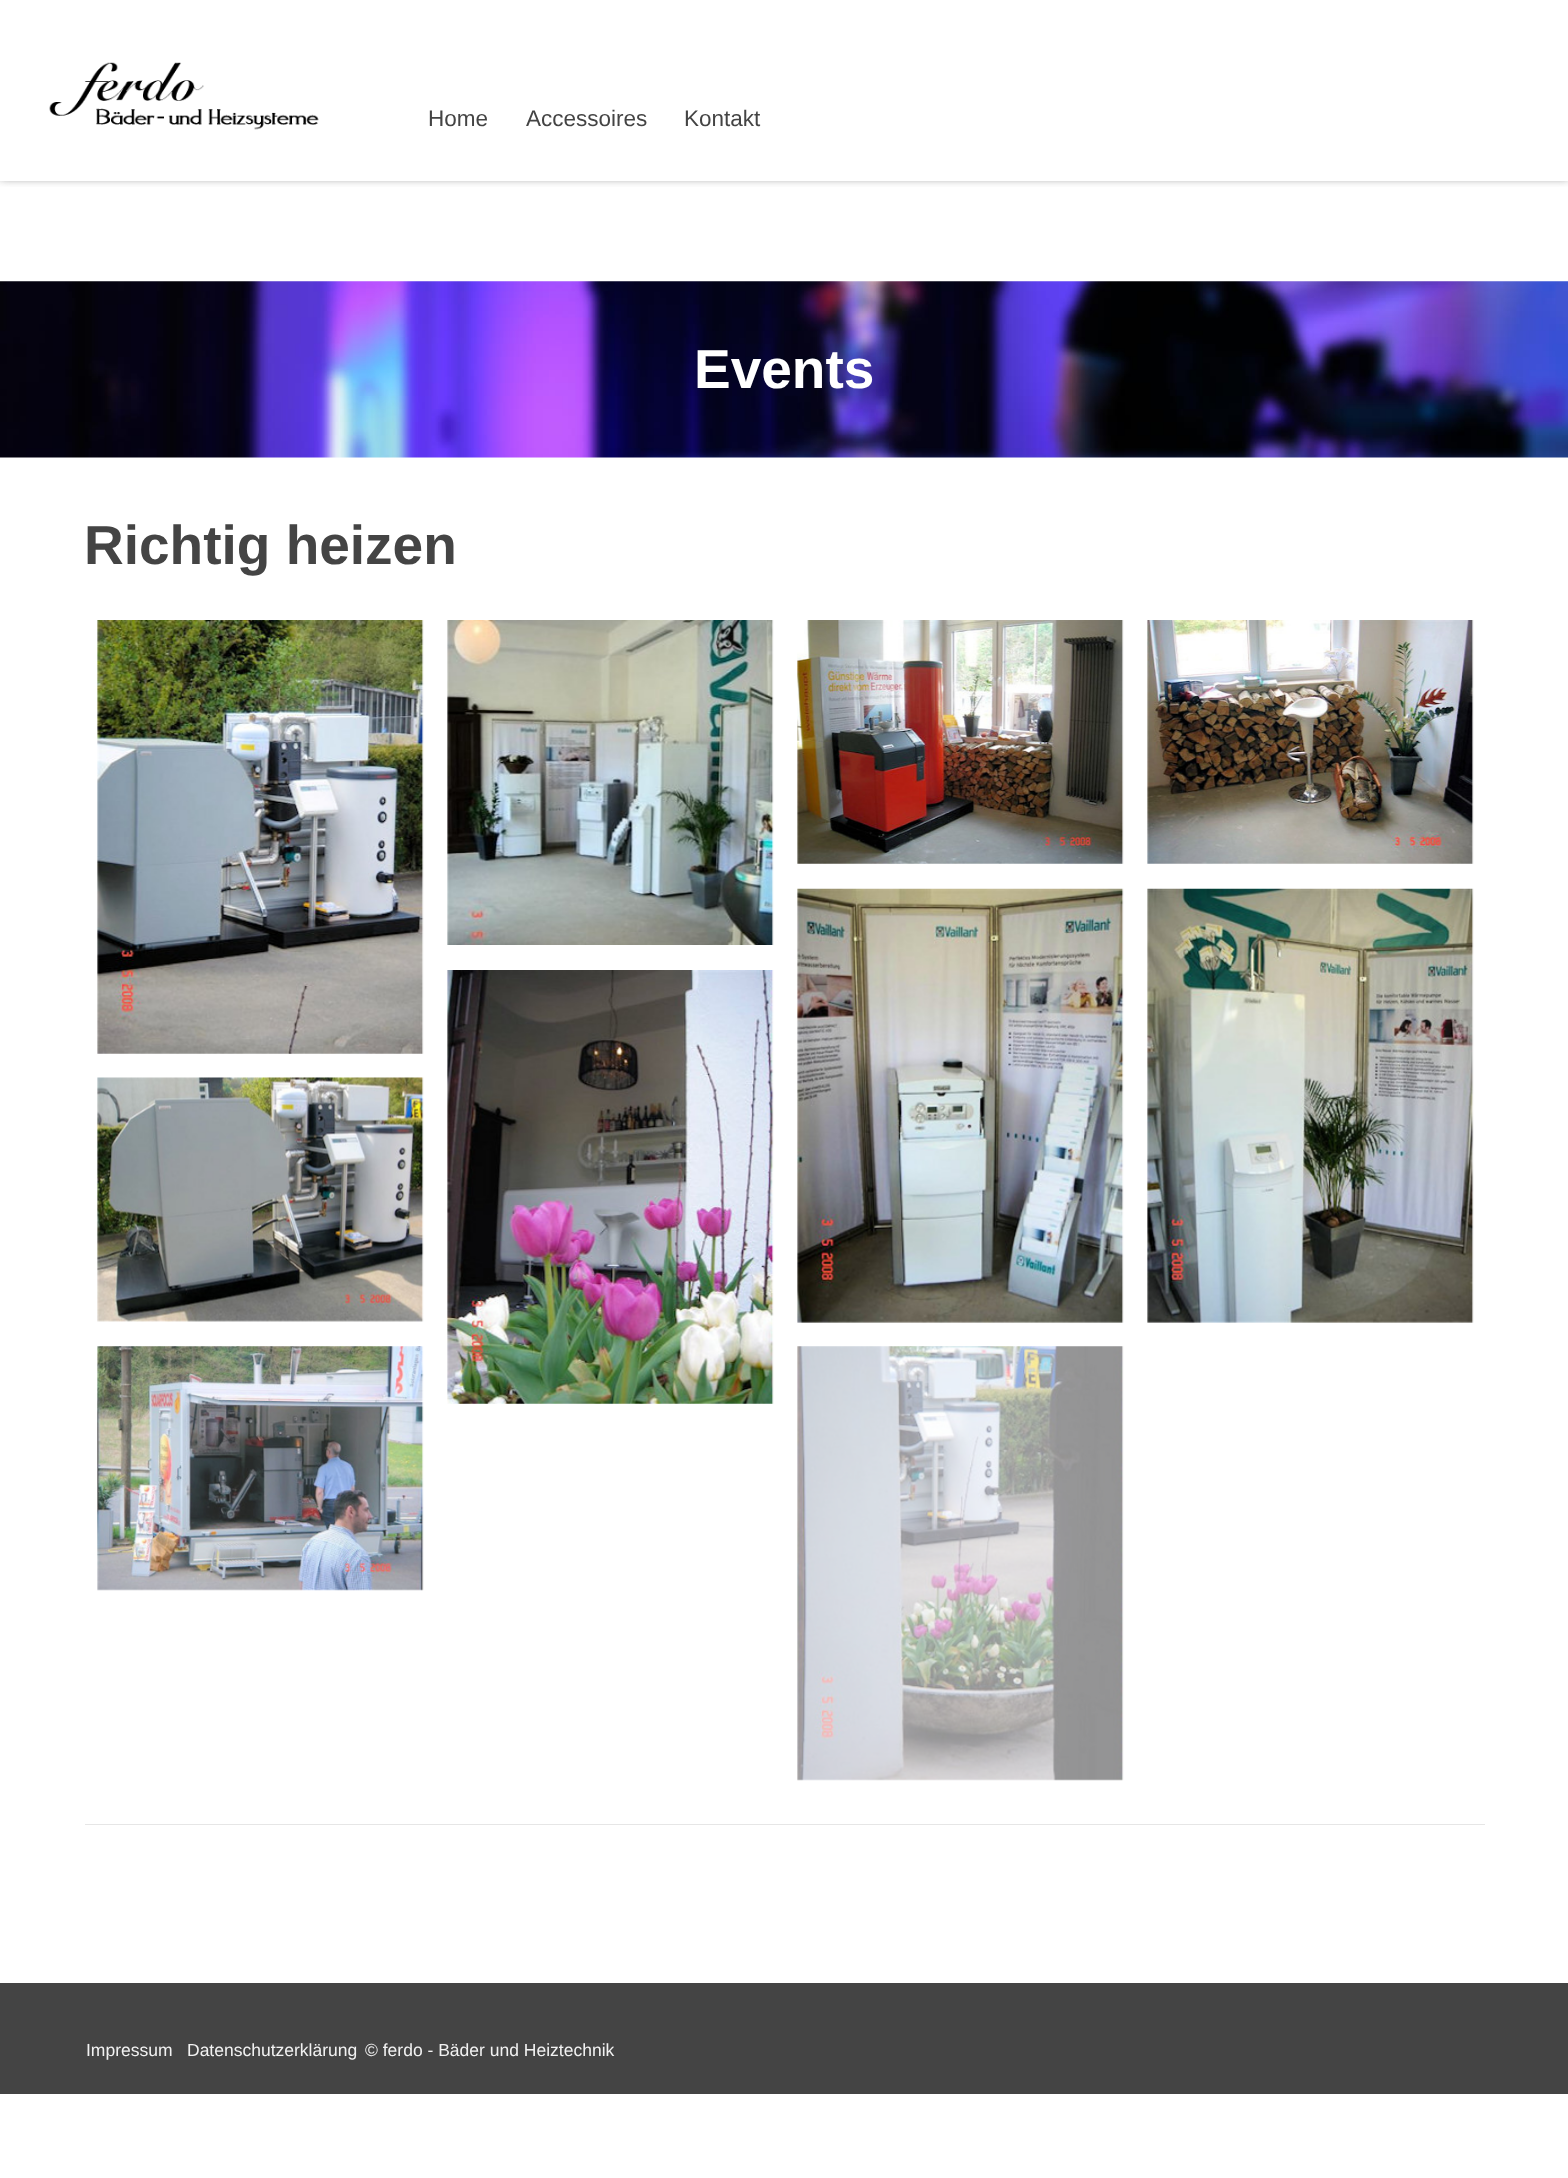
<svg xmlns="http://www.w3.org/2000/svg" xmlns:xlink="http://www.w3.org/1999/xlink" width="1568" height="2178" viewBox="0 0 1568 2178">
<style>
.cls-1{font:22.5px Liberation Sans;fill:#444444}
.cls-2{font:bold 55px Liberation Sans;fill:#ffffff}
.cls-3{font:bold 55px Liberation Sans;fill:#444444}
.cls-4{font:17.5px Liberation Sans;fill:#f2f2f2}
</style>
<defs>
<clipPath id="clip1"><rect x="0" y="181" width="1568" height="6"/></clipPath>
</defs>
<rect width="100%" height="100%" fill="#ffffff"/>
<g clip-path="url(#clip1)">
<rect fill="#333333" filter="blur(5.5px)" x="0" y="-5" width="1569" height="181"/>
</g>
<image xlink:href="image0.png" x="49" y="62" width="270" height="68"/>
<image xlink:href="image1.png" x="0" y="281" width="1568" height="177"/>
<image xlink:href="image2.png" x="97" y="620" width="327" height="434"/>
<image xlink:href="image3.png" x="447" y="620" width="327" height="325"/>
<image xlink:href="image4.png" x="797" y="620" width="327" height="244"/>
<image xlink:href="image5.png" x="1147" y="620" width="327" height="244"/>
<image xlink:href="image6.png" x="97" y="1077" width="327" height="245"/>
<image xlink:href="image7.png" x="447" y="970" width="327" height="434"/>
<image xlink:href="image8.png" x="797" y="888" width="327" height="435"/>
<image xlink:href="image9.png" x="1147" y="888" width="327" height="435"/>
<image xlink:href="image10.png" x="97" y="1346" width="327" height="245"/>
<image xlink:href="image11.png" x="797" y="1346" width="327" height="435"/>
<rect fill="#e6e6e6" x="85" y="1824" width="1400" height="1"/>
<rect fill="#444444" x="0" y="1983" width="1568" height="111"/>
<text class="cls-1" x="428" y="126">Home</text>
<text class="cls-1" x="526" y="126">Accessoires</text>
<text class="cls-1" x="684" y="126">Kontakt</text>
<text class="cls-2" x="694" y="388">Events</text>
<text class="cls-3" x="84" y="564">Richtig heizen</text>
<text class="cls-4" x="86" y="2056">Impressum</text>
<text class="cls-4" x="187" y="2056">Datenschutzerklärung</text>
<text class="cls-4" x="365" y="2056">© ferdo - Bäder und Heiztechnik</text>
</svg>
